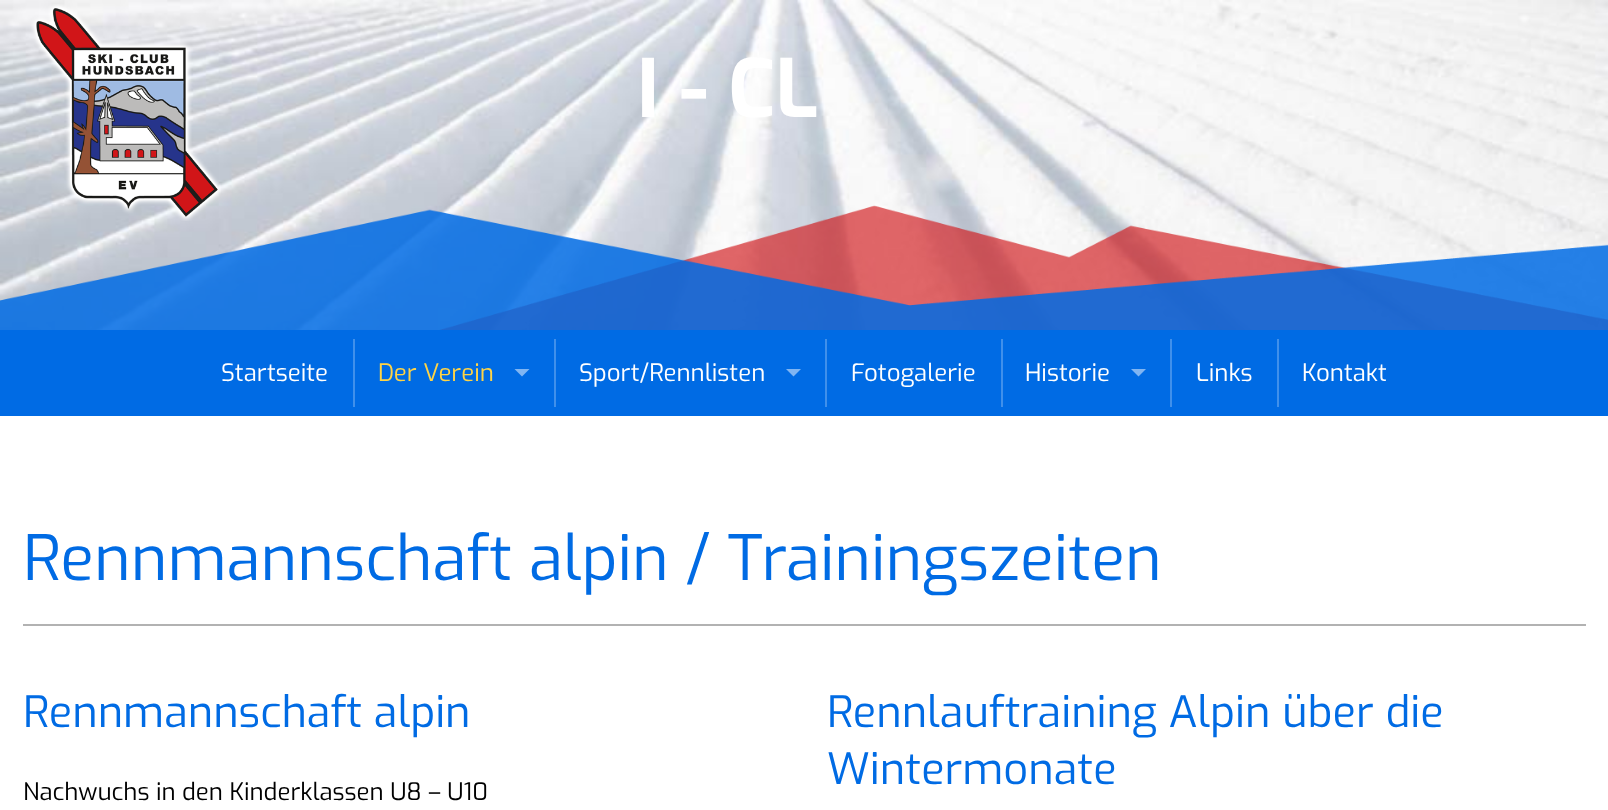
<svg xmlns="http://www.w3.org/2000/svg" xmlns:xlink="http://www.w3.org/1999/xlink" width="1608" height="810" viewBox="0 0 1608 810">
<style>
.cls-1{font:bold 80px Exo;fill:#ffffff}
.cls-2{font:24px Exo;fill:#ffffff}
.cls-3{font:24px Exo;fill:#ffd445}
.cls-4{font:62.4px Exo;fill:#006be4}
.cls-5{font:43.25px Exo;fill:#006be4}
.cls-6{font:24px Exo;fill:#000000}
</style>
<rect width="100%" height="100%" fill="#ffffff"/>
<image xlink:href="image0.png" x="0" y="0" width="1608" height="330"/>
<image xlink:href="image2.png" x="0" y="205" width="1608" height="125"/>
<image xlink:href="image1.png" x="31" y="4" width="190" height="217"/>
<rect fill="#006be4" x="0" y="330" width="1608" height="86"/>
<rect fill="#4090eb" x="353" y="339" width="2" height="68"/>
<path fill="#80b5f2" d="M514.5 369H529.5L522 376.5Z"/>
<rect fill="#4090eb" x="554" y="339" width="2" height="68"/>
<path fill="#80b5f2" d="M786 369H801L793.5 376.5Z"/>
<rect fill="#4090eb" x="825" y="339" width="2" height="68"/>
<rect fill="#4090eb" x="1001" y="339" width="2" height="68"/>
<path fill="#80b5f2" d="M1131 369H1146L1138.5 376.5Z"/>
<rect fill="#4090eb" x="1170" y="339" width="2" height="68"/>
<rect fill="#4090eb" x="1277" y="339" width="2" height="68"/>
<rect fill="#b2b2b2" x="23" y="624" width="1563" height="2"/>
<text class="cls-1" x="637" y="117">I - CL</text>
<text class="cls-2" x="221" y="381">Startseite</text>
<text class="cls-3" x="378" y="381">Der Verein</text>
<text class="cls-2" x="579" y="381">Sport/Rennlisten</text>
<text class="cls-2" x="851" y="381">Fotogalerie</text>
<text class="cls-2" x="1025" y="381">Historie</text>
<text class="cls-2" x="1196" y="381">Links</text>
<text class="cls-2" x="1302" y="381">Kontakt</text>
<text class="cls-4" x="23" y="580">Rennmannschaft alpin / Trainingszeiten</text>
<text class="cls-5" x="23" y="727">Rennmannschaft alpin</text>
<text class="cls-6" x="23" y="800">Nachwuchs in den Kinderklassen U8 – U10</text>
<text class="cls-5"><tspan x="827" y="727">Rennlauftraining Alpin über die</tspan><tspan x="827" y="784">Wintermonate</tspan></text>
</svg>
